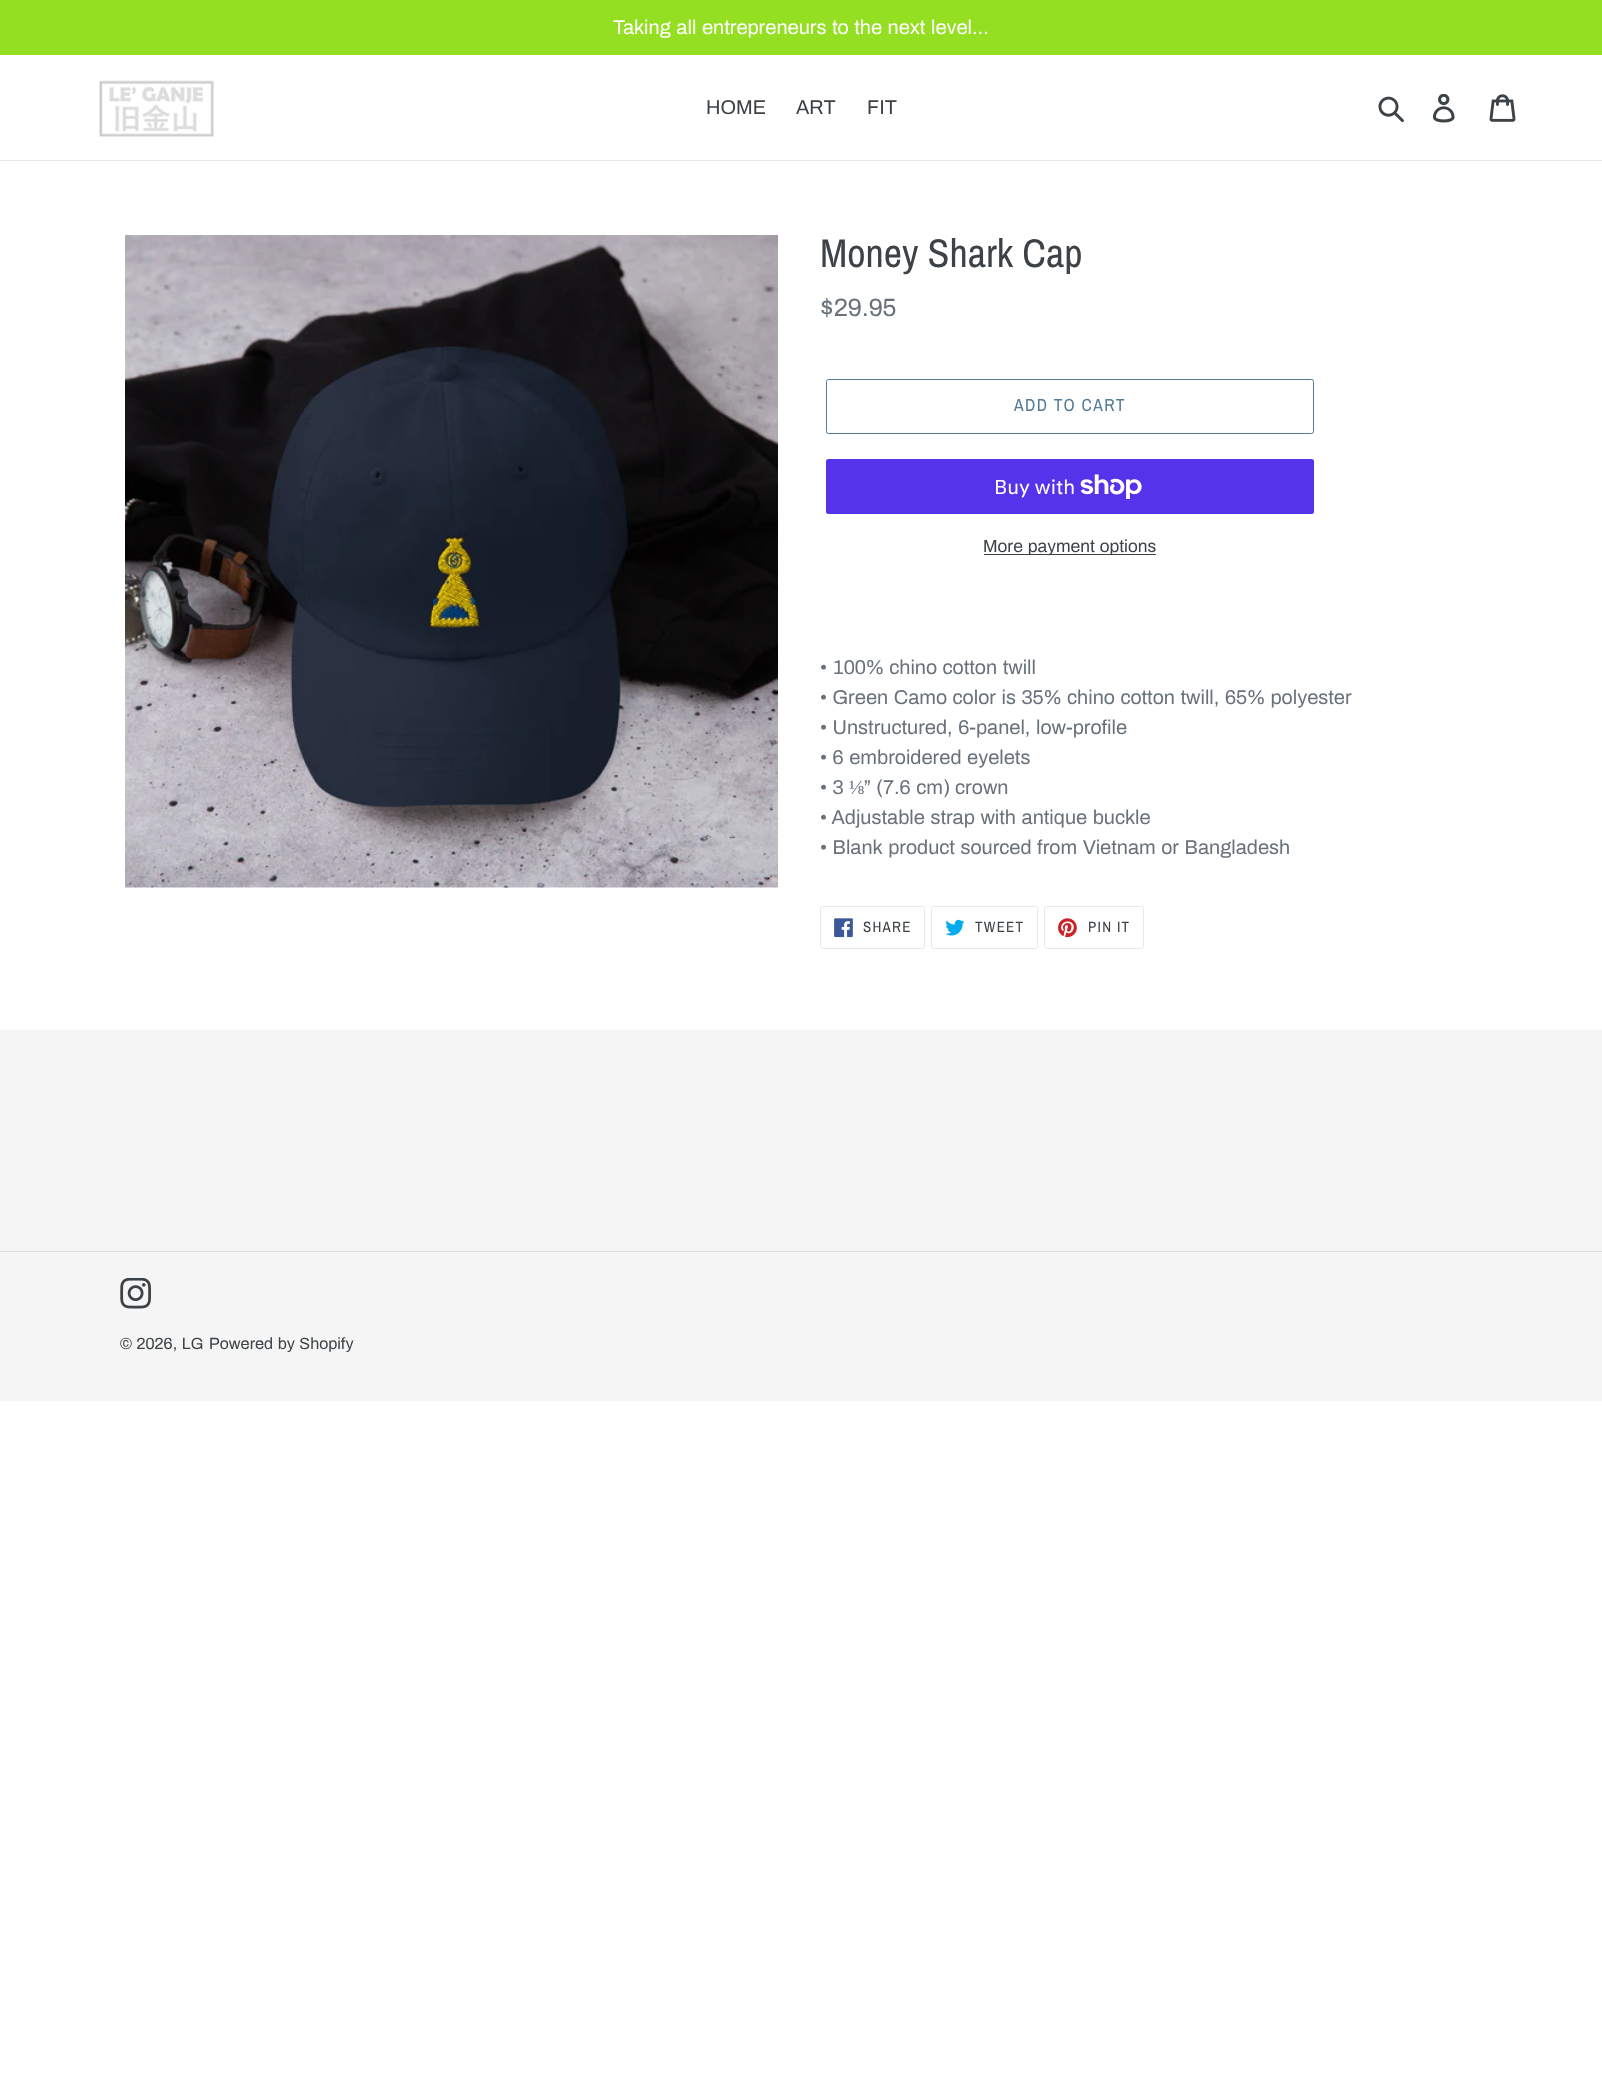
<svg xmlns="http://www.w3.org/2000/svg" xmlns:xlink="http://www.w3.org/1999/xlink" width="1602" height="2086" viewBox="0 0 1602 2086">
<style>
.cls-1{font:20px Archivo;fill:#ffffff}
.cls-2{font:20px Archivo;fill:#3d4246}
.cls-3{font:40px Archivo Narrow;fill:#3d4246}
.cls-4{font:25px Archivo;fill:#69727b}
.cls-5{font:17.5px Archivo Narrow;letter-spacing:1.4px;fill:#557b97}
.cls-6{font:20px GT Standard;fill:#ffffff}
.cls-7{font:17.5px Archivo;fill:#3d4246}
.cls-8{font:20px Archivo;fill:#69727b}
.cls-9{font:20px Liberation Serif;fill:#69727b}
.cls-10{font:15px Archivo Narrow;letter-spacing:1.25px;fill:#3d4246}
.cls-11{font:16.25px Archivo;fill:#3d4246}
</style>
<rect width="100%" height="100%" fill="#ffffff"/>
<rect fill="#95df23" x="0" y="0" width="1602" height="55"/>
<rect fill="#e8e9eb" x="0" y="160" width="1602" height="1"/>
<image xlink:href="image0.png" x="99" y="80" width="115" height="57"/>
<image xlink:href="image1.png" x="1378" y="96" width="26" height="27"/>
<image xlink:href="image2.png" x="1433" y="94" width="22" height="29"/>
<image xlink:href="image3.png" x="1489" y="94" width="27" height="28"/>
<image xlink:href="image4.png" x="125" y="235" width="653" height="653"/>
<rect fill="none" stroke="#557b97" x="826.5" y="379.5" width="487" height="54" rx="2"/>
<rect fill="#5433eb" x="826" y="459" width="488" height="55" rx="2.5"/>
<image xlink:href="image5.png" x="1080" y="474" width="62" height="25"/>
<rect fill="#3d4246" x="984" y="554" width="172" height="1"/>
<rect fill="none" stroke="#e8e9eb" x="820.5" y="906.5" width="104" height="42" rx="2"/>
<image xlink:href="image6.png" x="834" y="918" width="19" height="20"/>
<rect fill="none" stroke="#e8e9eb" x="931.5" y="906.5" width="106" height="42" rx="2"/>
<image xlink:href="image7.png" x="945" y="919" width="20" height="17"/>
<rect fill="none" stroke="#e8e9eb" x="1044.5" y="906.5" width="99" height="42" rx="2"/>
<image xlink:href="image8.png" x="1058" y="918" width="19" height="20"/>
<rect fill="#f5f5f5" x="0" y="1030" width="1602" height="371"/>
<rect fill="#dcdcdc" x="0" y="1251" width="1602" height="1"/>
<image xlink:href="image9.png" x="120" y="1278" width="31" height="31"/>
<text class="cls-1" x="613" y="34">Taking all entrepreneurs to the next level...</text>
<text class="cls-2" x="706" y="114">HOME</text>
<text class="cls-2" x="796" y="114">ART</text>
<text class="cls-2" x="867" y="114">FIT</text>
<text class="cls-3" x="820" y="267">Money Shark Cap</text>
<text class="cls-4" x="820" y="316">$29.95</text>
<text class="cls-5" x="1014" y="411">ADD TO CART</text>
<text class="cls-6" x="994" y="494">Buy with</text>
<text class="cls-7" x="983" y="552">More payment options</text>
<text class="cls-8"><tspan x="820" y="674">• 100% chino cotton twill</tspan><tspan x="820" y="704">• Green Camo color is 35% chino cotton twill, 65% polyester</tspan><tspan x="820" y="734">• Unstructured, 6-panel, low-profile</tspan><tspan x="820" y="764">• 6 embroidered eyelets</tspan><tspan x="820" y="794">• 3</tspan></text>
<text class="cls-9" x="849" y="794">⅛</text>
<text class="cls-8" x="864" y="794">” (7.6 cm) crown</text>
<text class="cls-8"><tspan x="820" y="824">• Adjustable strap with antique buckle</tspan><tspan x="820" y="854">• Blank product sourced from Vietnam or Bangladesh</tspan></text>
<text class="cls-10" x="863" y="932">SHARE</text>
<text class="cls-10" x="975" y="932">TWEET</text>
<text class="cls-10" x="1088" y="932">PIN IT</text>
<text class="cls-11" x="120" y="1349">© 2026, LG</text>
<text class="cls-11" x="209" y="1349">Powered by Shopify</text>
</svg>
